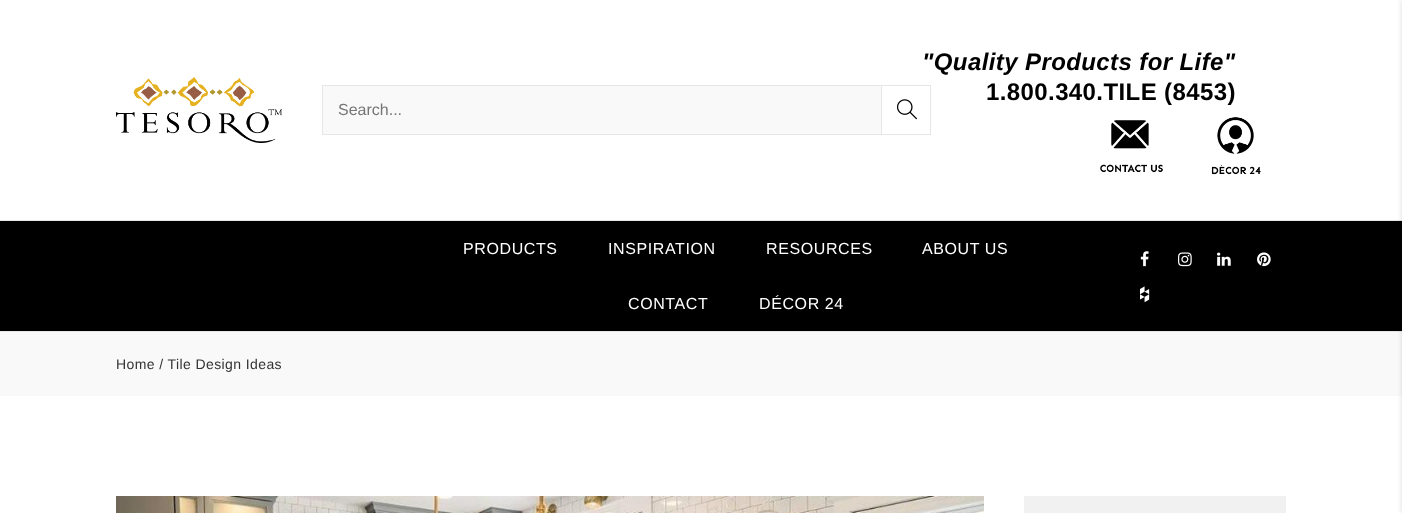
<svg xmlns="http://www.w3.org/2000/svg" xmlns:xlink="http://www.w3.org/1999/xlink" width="1402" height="513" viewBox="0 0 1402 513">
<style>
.cls-1{font:16px Liberation Sans;fill:#757575}
.cls-2{font:italic bold 24px Liberation Sans;letter-spacing:0.4px;fill:#000000}
.cls-3{font:bold 24px Liberation Sans;letter-spacing:0.4px;fill:#000000}
.cls-4{font:16px Liberation Sans;letter-spacing:0.6px;fill:#ffffff}
.cls-5{font:14px Liberation Sans;letter-spacing:0.4px;fill:#333333}
</style>
<rect width="100%" height="100%" fill="#ffffff"/>
<image xlink:href="image0.png" x="116" y="77" width="166" height="66"/>
<rect fill="#f9f9f9" x="323" y="86" width="558" height="48"/>
<rect fill="#e6e6e6" x="322" y="85" width="560" height="1"/>
<rect fill="#e6e6e6" x="322" y="134" width="560" height="1"/>
<rect fill="#e6e6e6" x="322" y="85" width="1" height="50"/>
<rect fill="none" stroke="#e6e6e6" x="881.5" y="85.5" width="49" height="49"/>
<image xlink:href="image1.png" x="897" y="99" width="20" height="21"/>
<image xlink:href="image2.png" x="1100" y="120" width="63" height="53"/>
<image xlink:href="image3.png" x="1211" y="117" width="50" height="58"/>
<rect fill="#000000" x="0" y="221" width="1402" height="110"/>
<rect fill="#e7e7e7" x="0" y="220" width="1402" height="1"/>
<rect fill="#e7e7e7" x="0" y="331" width="1402" height="1"/>
<image xlink:href="image4.png" x="1140" y="251" width="9" height="16"/>
<image xlink:href="image5.png" x="1178" y="252" width="14" height="15"/>
<image xlink:href="image6.png" x="1217" y="252" width="14" height="14"/>
<image xlink:href="image7.png" x="1257" y="252" width="14" height="15"/>
<image xlink:href="image8.png" x="1140" y="286" width="10" height="17"/>
<rect fill="#f9f9f9" x="0" y="332" width="1402" height="64"/>
<rect fill="#000000" fill-opacity="0.1" filter="blur(2px)" x="1401" y="0" width="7" height="513"/>
<image xlink:href="image9.png" x="116" y="496" width="868" height="17"/>
<rect fill="#f1f1f1" x="1024" y="496" width="262" height="17"/>
<text class="cls-1" x="338" y="115">Search...</text>
<text class="cls-2" x="922" y="70">"Quality Products for Life"</text>
<text class="cls-3" x="986" y="100">1.800.340.TILE (8453)</text>
<text class="cls-4" x="463" y="254">PRODUCTS</text>
<text class="cls-4" x="608" y="254">INSPIRATION</text>
<text class="cls-4" x="766" y="254">RESOURCES</text>
<text class="cls-4" x="922" y="254">ABOUT US</text>
<text class="cls-4" x="628" y="309">CONTACT</text>
<text class="cls-4" x="759" y="309">DÉCOR 24</text>
<text class="cls-5" x="116" y="369">Home / Tile Design Ideas</text>
</svg>
